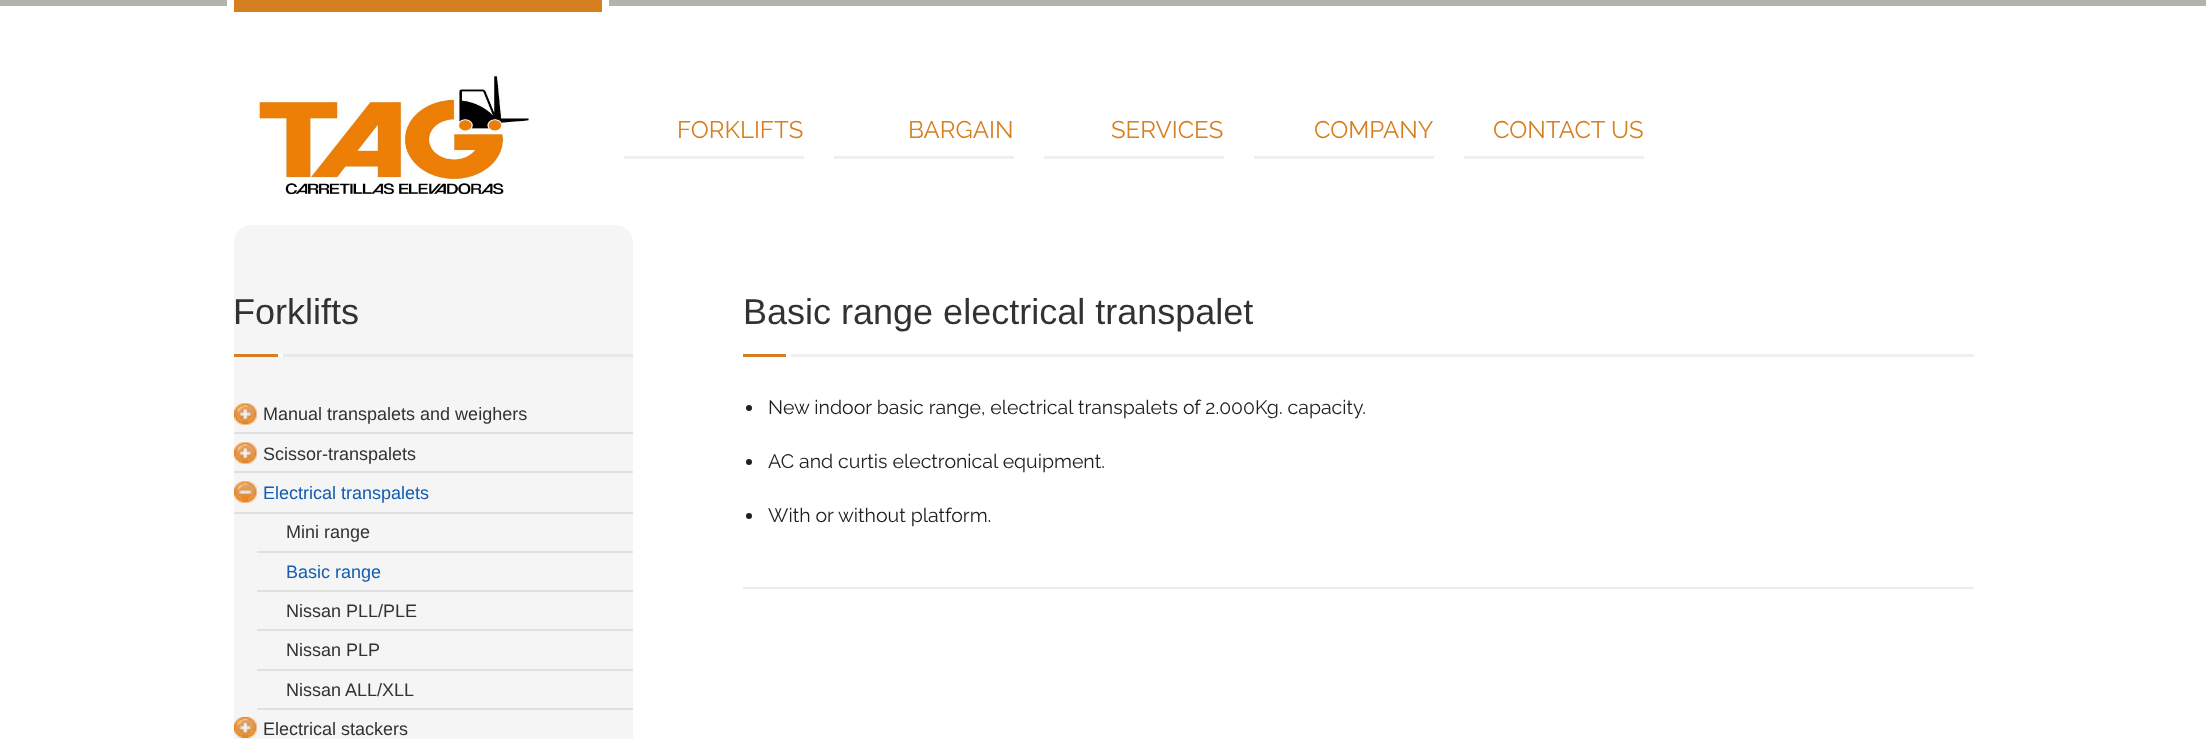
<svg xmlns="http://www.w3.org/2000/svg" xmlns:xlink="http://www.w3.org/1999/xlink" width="2206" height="739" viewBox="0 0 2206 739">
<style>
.cls-1{font:24px Raleway;fill:#d67f1e}
.cls-2{font:36px Liberation Sans;fill:#323232}
.cls-3{font:18px Arimo;fill:#323232}
.cls-4{font:18px Arimo;fill:#135cae}
.cls-5{font:19.5px Raleway;fill:#202020}
</style>
<rect width="100%" height="100%" fill="#ffffff"/>
<rect fill="#b2b3aa" x="0" y="0" width="2206" height="6"/>
<rect fill="#d67f1e" x="234" y="0" width="368" height="12"/>
<rect fill="#ffffff" x="602" y="0" width="7" height="12"/>
<rect fill="#ffffff" x="227" y="0" width="7" height="12"/>
<image xlink:href="image0.png" x="256" y="76" width="273" height="119"/>
<rect fill="#eff0ee" x="624" y="156" width="180" height="3"/>
<rect fill="#eff0ee" x="834" y="156" width="180" height="3"/>
<rect fill="#eff0ee" x="1044" y="156" width="180" height="3"/>
<rect fill="#eff0ee" x="1254" y="156" width="180" height="3"/>
<rect fill="#eff0ee" x="1464" y="156" width="180" height="3"/>
<rect fill="#f5f5f5" x="234" y="225" width="399" height="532" rx="18"/>
<rect fill="#e8e8e6" x="283" y="354" width="350" height="3"/>
<rect fill="#d67f1e" x="234" y="354" width="48" height="3"/>
<rect fill="#ffffff" x="278" y="354" width="5" height="3"/>
<image xlink:href="image1.png" x="234" y="403" width="23" height="22"/>
<rect fill="#e0e0e0" x="234" y="432" width="399" height="2"/>
<image xlink:href="image1.png" x="234" y="442" width="23" height="22"/>
<rect fill="#e0e0e0" x="234" y="471" width="399" height="2"/>
<image xlink:href="image2.png" x="234" y="481" width="23" height="22"/>
<rect fill="#e0e0e0" x="234" y="512" width="399" height="2"/>
<rect fill="#e0e0e0" x="257" y="551" width="376" height="2"/>
<rect fill="#e0e0e0" x="257" y="590" width="376" height="2"/>
<rect fill="#e0e0e0" x="257" y="629" width="376" height="2"/>
<rect fill="#e0e0e0" x="257" y="669" width="376" height="2"/>
<rect fill="#e0e0e0" x="257" y="708" width="376" height="2"/>
<image xlink:href="image3.png" x="234" y="717" width="23" height="21"/>
<rect fill="#f0f0ee" x="791" y="354" width="1183" height="3"/>
<rect fill="#d67f1e" x="743" y="354" width="48" height="3"/>
<rect fill="#ffffff" x="786" y="354" width="5" height="3"/>
<circle fill="#202020" cx="749" cy="408" r="3"/>
<circle fill="#202020" cx="749" cy="462" r="3"/>
<circle fill="#202020" cx="749" cy="516" r="3"/>
<rect fill="#ececec" x="743" y="587" width="1231" height="2"/>
<text class="cls-1" x="677" y="138">FORKLIFTS</text>
<text class="cls-1" x="908" y="138">BARGAIN</text>
<text class="cls-1" x="1111" y="138">SERVICES</text>
<text class="cls-1" x="1314" y="138">COMPANY</text>
<text class="cls-1" x="1493" y="138">CONTACT US</text>
<text class="cls-2" x="233" y="324">Forklifts</text>
<text class="cls-3" x="263" y="420">Manual transpalets and weighers</text>
<text class="cls-3" x="263" y="460">Scissor-transpalets</text>
<text class="cls-4" x="263" y="499">Electrical transpalets</text>
<text class="cls-3" x="286" y="538">Mini range</text>
<text class="cls-4" x="286" y="578">Basic range</text>
<text class="cls-3" x="286" y="617">Nissan PLL/PLE</text>
<text class="cls-3" x="286" y="656">Nissan PLP</text>
<text class="cls-3" x="286" y="696">Nissan ALL/XLL</text>
<text class="cls-3" x="263" y="735">Electrical stackers</text>
<text class="cls-2" x="743" y="324">Basic range electrical transpalet</text>
<text class="cls-5" x="768" y="414">New indoor basic range, electrical transpalets of 2.000Kg. capacity.</text>
<text class="cls-5" x="768" y="468">AC and curtis electronical equipment.</text>
<text class="cls-5" x="768" y="522">With or without platform.</text>
</svg>
